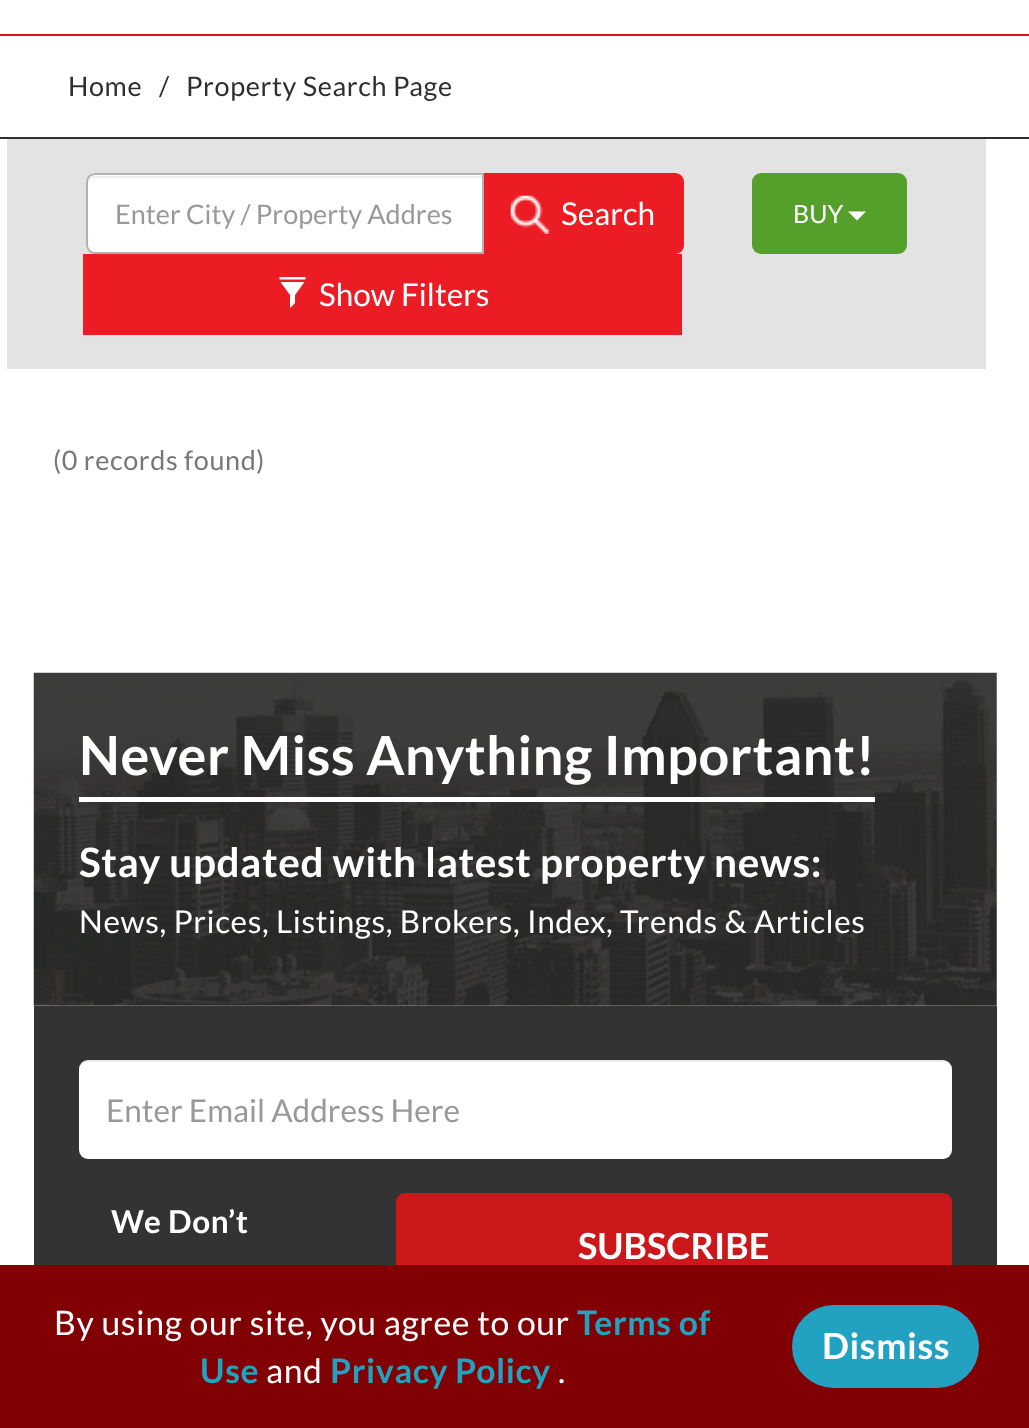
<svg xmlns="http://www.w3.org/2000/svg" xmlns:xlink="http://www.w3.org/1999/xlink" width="1029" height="1428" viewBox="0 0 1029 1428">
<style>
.cls-1{font:27px Lato;letter-spacing:0.6px;fill:#2f2f2f}
.cls-2{font:27px Lato;fill:#999999}
.cls-3{font:31.5px Lato;fill:#ffffff}
.cls-4{font:25px Lato;fill:#ffffff}
.cls-5{font:27px Lato;letter-spacing:0.6px;fill:#777777}
.cls-6{font:bold 54px Lato;letter-spacing:0.6px;fill:#ffffff}
.cls-7{font:bold 40.5px Lato;letter-spacing:0.6px;fill:#ffffff}
.cls-8{font:31.5px Lato;letter-spacing:0.6px;fill:#ffffff}
.cls-9{font:31.5px Lato;fill:#999999}
.cls-10{font:bold 31.5px Lato;letter-spacing:0.6px;fill:#ffffff}
.cls-11{font:bold 36px Lato;fill:#ffffff}
.cls-12{font:33.75px Lato;letter-spacing:0.6px;fill:#ffffff}
.cls-13{font:bold 33.75px Lato;letter-spacing:0.6px;fill:#23a1c0}
.cls-14{font:bold 36px Lato;letter-spacing:0.6px;fill:#ffffff}
</style>
<rect width="100%" height="100%" fill="#ffffff"/>
<rect fill="#cc171b" x="0" y="34" width="1029" height="2"/>
<rect fill="#2f2f2f" x="0" y="137" width="1029" height="2"/>
<rect fill="#e3e3e3" x="7" y="139" width="979" height="230"/>
<path fill="#ec1c24" d="M482 173H675C680 173 684 177 684 182V245C684 250 680 254 675 254H482Z"/>
<path fill="#ffffff" d="M95 173H484V254H95C90 254 86 250 86 245V182C86 177 90 173 95 173Z"/>
<path fill="#ececec" d="M94 178H482V176H95C90 176 88 180 88 184C88 181 91 178 94 178Z"/>
<path fill="none" stroke="#b1b1b1" stroke-width="2" d="M95 174H483V253H95C90.5 253 87 249.5 87 245V182C87 177.5 90.5 174 95 174Z"/>
<image xlink:href="image0.png" x="510" y="195" width="39" height="39"/>
<rect fill="#55a02a" x="752" y="173" width="155" height="81" rx="9"/>
<path fill="#ffffff" d="M848 211.5H866L857 220.5Z"/>
<rect fill="#ec1c24" x="83" y="254" width="599" height="81"/>
<path fill="#ffffff" d="M279.5 279.5V277H305.5V279.5ZM280.5 282H304.5L295 295V303L290 308V295Z"/>
<image xlink:href="image1.png" x="33" y="672" width="964" height="334"/>
<rect fill="#ffffff" x="79" y="797" width="796" height="5"/>
<rect fill="#333333" x="34" y="1006" width="963" height="259"/>
<rect fill="#ffffff" x="79" y="1060" width="873" height="99" rx="9"/>
<path fill="#000000" fill-opacity="0.07" d="M88 1062H943C948 1062 952 1066 952 1071V1069C952 1064 948 1060 943 1060H88C83 1060 79 1064 79 1069V1071C79 1066 83 1062 88 1062Z"/>
<rect fill="#cc171b" x="396" y="1193" width="556" height="112" rx="9"/>
<rect fill="#800003" x="0" y="1265" width="1029" height="163"/>
<rect fill="#23a1c0" x="792" y="1305" width="187" height="83" rx="41.5"/>
<text class="cls-1" x="68" y="96">Home</text>
<text class="cls-1" x="159" y="96">/</text>
<text class="cls-1" x="186" y="96">Property Search Page</text>
<text class="cls-2" x="115" y="224">Enter City / Property Addres</text>
<text class="cls-3" x="561" y="225">Search</text>
<text class="cls-4" x="793" y="223">BUY</text>
<text class="cls-3" x="319" y="306">Show Filters</text>
<text class="cls-5" x="53" y="470">(0 records found)</text>
<text class="cls-6" x="79" y="775">Never Miss Anything Important!</text>
<text class="cls-7" x="79" y="877">Stay updated with latest property news:</text>
<text class="cls-8" x="79" y="933">News, Prices, Listings, Brokers, Index, Trends &amp; Articles</text>
<text class="cls-9" x="106" y="1122">Enter Email Address Here</text>
<text class="cls-10" x="111" y="1233">We Don’t</text>
<text class="cls-11" x="578" y="1259">SUBSCRIBE</text>
<text class="cls-12" x="54" y="1335">By using our site, you agree to our</text>
<text class="cls-13" x="577" y="1335">Terms of</text>
<text class="cls-13" x="200" y="1383">Use</text>
<text class="cls-12" x="266" y="1383">and</text>
<text class="cls-13" x="330" y="1383">Privacy Policy</text>
<text class="cls-12" x="558" y="1383">.</text>
<text class="cls-14" x="822" y="1359">Dismiss</text>
</svg>
